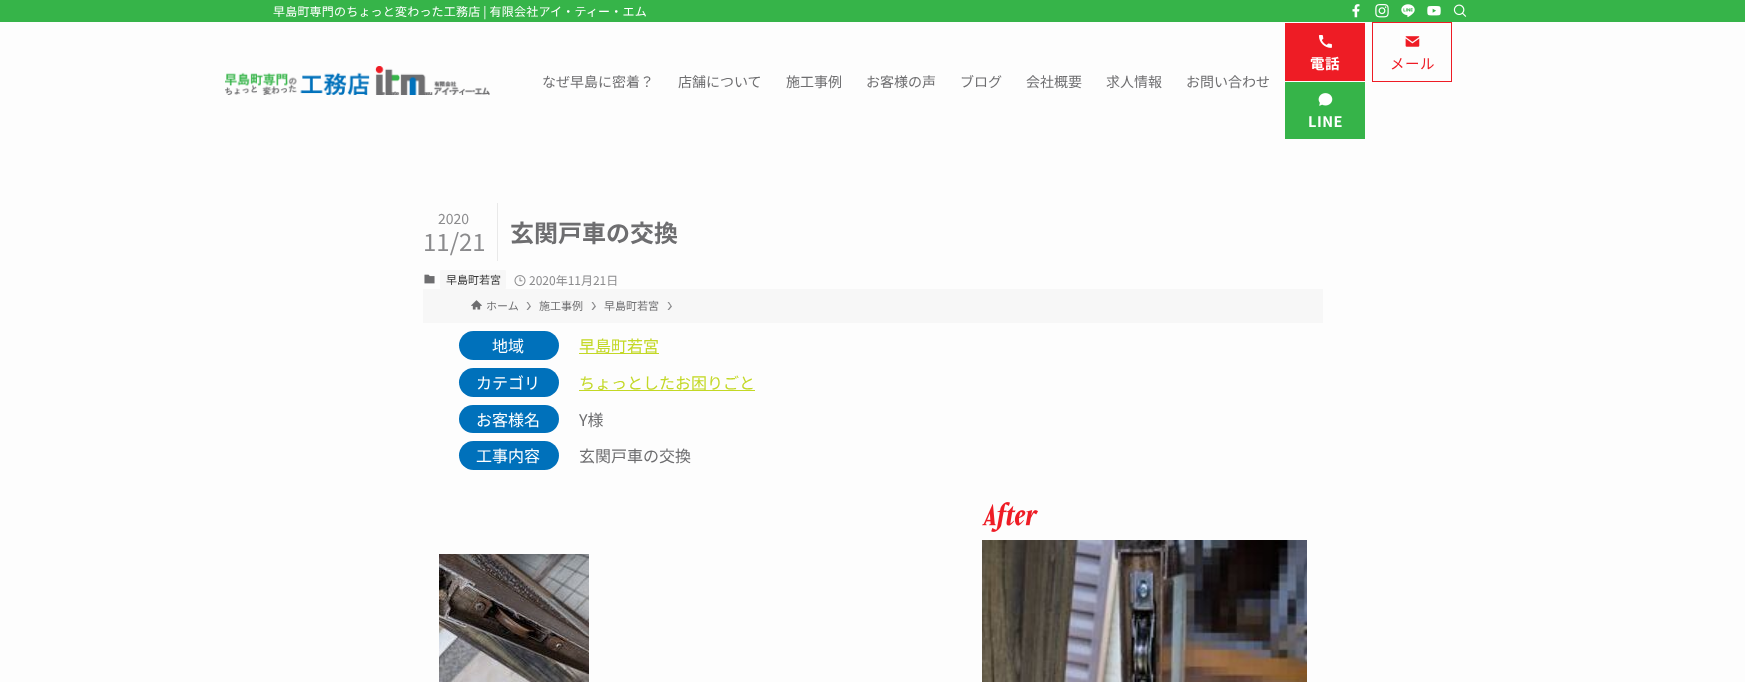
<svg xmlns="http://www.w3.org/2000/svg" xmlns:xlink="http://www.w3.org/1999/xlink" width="1745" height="682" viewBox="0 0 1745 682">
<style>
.cls-1{font:12px Noto Sans JP;letter-spacing:0.2px;fill:#ffffff}
.cls-2{font:14px Noto Sans JP;fill:#6e6e70}
.cls-3{font:bold 14.5px Noto Sans JP;letter-spacing:0.5px;fill:#ffffff}
.cls-4{font:14.5px Noto Sans JP;letter-spacing:0.5px;fill:#ee1c25}
.cls-5{font:14px Noto Sans JP;fill:#8b8b8d}
.cls-6{font:24px Noto Sans JP;fill:#8b8b8d}
.cls-7{font:bold 24px Noto Sans JP;fill:#6e6e70}
.cls-8{font:11px Noto Sans JP;fill:#333333}
.cls-9{font:12px Noto Sans JP;fill:#8b8b8d}
.cls-10{font:11px Noto Sans JP;fill:#6e6e70}
.cls-11{font:16px Noto Sans JP;fill:#ffffff}
.cls-12{font:16px Noto Sans JP;fill:#c3d825}
.cls-13{font:16px Noto Sans JP;fill:#6e6e70}
</style>
<rect width="100%" height="100%" fill="#fdfdfd"/>
<rect fill="#36b449" x="0" y="0" width="1745" height="22"/>
<image xlink:href="image0.png" x="1352" y="4" width="8" height="14"/>
<image xlink:href="image1.png" x="1375" y="4" width="14" height="14"/>
<image xlink:href="image2.png" x="1401" y="4" width="14" height="14"/>
<image xlink:href="image3.png" x="1427" y="6" width="14" height="10"/>
<image xlink:href="image4.png" x="1453" y="4" width="14" height="13"/>
<image xlink:href="image5.png" x="225" y="66" width="265" height="29"/>
<rect fill="#ee1c25" x="1285" y="23" width="80" height="58"/>
<image xlink:href="image6.png" x="1318" y="35" width="14" height="13"/>
<rect fill="none" stroke="#ee1c25" x="1372.5" y="22.5" width="79" height="59"/>
<image xlink:href="image7.png" x="1405" y="36" width="15" height="11"/>
<rect fill="#36b449" x="1285" y="82" width="80" height="57"/>
<image xlink:href="image8.png" x="1318" y="93" width="15" height="13"/>
<rect fill="#e9e9e9" x="497" y="203" width="1" height="58"/>
<image xlink:href="image9.png" x="424" y="274" width="11" height="10"/>
<rect fill="#f7f7f7" x="440" y="270" width="66" height="19" rx="1"/>
<image xlink:href="image10.png" x="514" y="275" width="12" height="12"/>
<rect fill="#f7f7f7" x="423" y="289" width="900" height="34"/>
<image xlink:href="image11.png" x="471" y="300" width="11" height="10"/>
<path fill="#89898b" d="M528 302H526.5L529.5 306L526.5 310H528L531 306.5Z"/>
<path fill="#89898b" d="M593 302H591.5L594.5 306L591.5 310H593L596 306.5Z"/>
<path fill="#89898b" d="M669 302H667.5L670.5 306L667.5 310H669L672 306.5Z"/>
<rect fill="#0071bb" x="459" y="331" width="100" height="29" rx="14.5"/>
<rect fill="#c3d825" x="579" y="353" width="80" height="1"/>
<rect fill="#0071bb" x="459" y="368" width="100" height="29" rx="14.5"/>
<rect fill="#c3d825" x="579" y="390" width="176" height="1"/>
<rect fill="#0071bb" x="459" y="405" width="100" height="28" rx="14"/>
<rect fill="#0071bb" x="459" y="441" width="100" height="29" rx="14.5"/>
<image xlink:href="image12.png" x="439" y="554" width="150" height="128"/>
<image xlink:href="image13.png" x="982" y="502" width="56" height="30"/>
<image xlink:href="image14.png" x="982" y="540" width="325" height="142"/>
<text class="cls-1" x="273" y="16">早島町専門のちょっと変わった工務店 | 有限会社アイ・ティー・エム</text>
<text class="cls-2" x="542" y="87">なぜ早島に密着？</text>
<text class="cls-2" x="678" y="87">店舗について</text>
<text class="cls-2" x="786" y="87">施工事例</text>
<text class="cls-2" x="866" y="87">お客様の声</text>
<text class="cls-2" x="960" y="87">ブログ</text>
<text class="cls-2" x="1026" y="87">会社概要</text>
<text class="cls-2" x="1106" y="87">求人情報</text>
<text class="cls-2" x="1186" y="87">お問い合わせ</text>
<text class="cls-3" x="1310" y="69">電話</text>
<text class="cls-4" x="1390" y="69">メール</text>
<text class="cls-3" x="1308" y="127">LINE</text>
<text class="cls-5" x="438" y="224">2020</text>
<text class="cls-6" x="423" y="251">11/21</text>
<text class="cls-7" x="510" y="242">玄関戸車の交換</text>
<text class="cls-8" x="446" y="284">早島町若宮</text>
<text class="cls-9" x="529" y="285">2020年11月21日</text>
<text class="cls-10" x="486" y="310">ホーム</text>
<text class="cls-10" x="539" y="310">施工事例</text>
<text class="cls-10" x="604" y="310">早島町若宮</text>
<text class="cls-11" x="492" y="352">地域</text>
<text class="cls-12" x="579" y="352">早島町若宮</text>
<text class="cls-11" x="476" y="389">カテゴリ</text>
<text class="cls-12" x="579" y="389">ちょっとしたお困りごと</text>
<text class="cls-11" x="476" y="426">お客様名</text>
<text class="cls-13" x="579" y="426">Y様</text>
<text class="cls-11" x="476" y="462">工事内容</text>
<text class="cls-13" x="579" y="462">玄関戸車の交換</text>
</svg>
